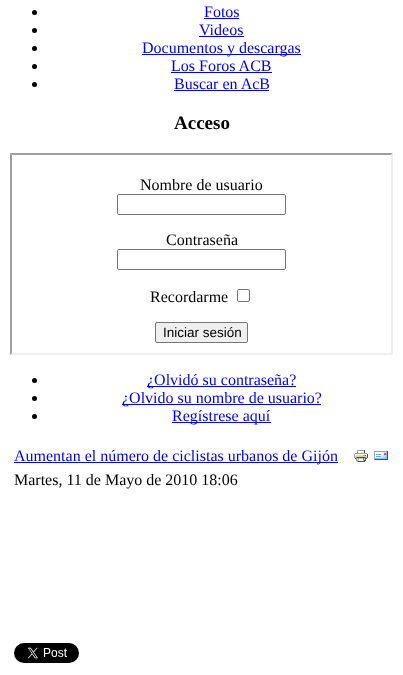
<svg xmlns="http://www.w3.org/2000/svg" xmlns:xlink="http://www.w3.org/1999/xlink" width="403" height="675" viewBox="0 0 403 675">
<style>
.cls-1{font:16px Liberation Serif;fill:#0000ee}
.cls-2{font:bold 19px Liberation Serif;fill:#000000}
.cls-3{font:16px Liberation Serif;fill:#000000}
.cls-4{font:13.5px Liberation Sans;fill:#000000}
</style>
<rect width="100%" height="100%" fill="#ffffff"/>
<circle fill="#000000" cx="34.5" cy="12.5" r="2.5"/>
<rect fill="#0000ee" x="204" y="18" width="35" height="1"/>
<circle fill="#000000" cx="34.5" cy="30.5" r="2.5"/>
<rect fill="#0000ee" x="199" y="36" width="45" height="1"/>
<circle fill="#000000" cx="34.5" cy="48.5" r="2.5"/>
<rect fill="#0000ee" x="142" y="54" width="159" height="1"/>
<circle fill="#000000" cx="34.5" cy="66.5" r="2.5"/>
<rect fill="#0000ee" x="171" y="72" width="101" height="1"/>
<circle fill="#000000" cx="34.5" cy="84.5" r="2.5"/>
<rect fill="#0000ee" x="174" y="90" width="95" height="1"/>
<path fill="#9f9f9f" d="M10 153H393L391 155H12Z"/>
<path fill="#efefef" d="M393 153V355L391 353V155Z"/>
<path fill="#efefef" d="M393 355H10L12 353H391Z"/>
<path fill="#9f9f9f" d="M10 355V153L12 155V353Z"/>
<rect fill="none" stroke="#767676" x="117.5" y="194.5" width="168" height="20" rx="1.5"/>
<rect fill="none" stroke="#767676" x="117.5" y="249.5" width="168" height="20" rx="1.5"/>
<rect fill="none" stroke="#767676" x="237.5" y="289.5" width="12" height="12" rx="1.5"/>
<rect fill="#efefef" stroke="#767676" x="155.5" y="322.5" width="92" height="20" rx="1.5"/>
<circle fill="#000000" cx="34.5" cy="380.5" r="2.5"/>
<rect fill="#0000ee" x="147" y="386" width="149" height="1"/>
<circle fill="#000000" cx="34.5" cy="398.5" r="2.5"/>
<rect fill="#0000ee" x="122" y="404" width="199" height="1"/>
<circle fill="#000000" cx="34.5" cy="416.5" r="2.5"/>
<rect fill="#0000ee" x="172" y="422" width="99" height="1"/>
<rect fill="#0000ee" x="14" y="462" width="324" height="1"/>
<image xlink:href="image0.png" x="354" y="450" width="14" height="12"/>
<image xlink:href="image1.png" x="374" y="451" width="14" height="9"/>
<image xlink:href="image2.png" x="14" y="643" width="65" height="20"/>
<text class="cls-1" x="204" y="17">Fotos</text>
<text class="cls-1" x="199" y="35">Videos</text>
<text class="cls-1" x="142" y="53">Documentos y descargas</text>
<text class="cls-1" x="171" y="71">Los Foros ACB</text>
<text class="cls-1" x="174" y="89">Buscar en AcB</text>
<text class="cls-2" x="174" y="129">Acceso</text>
<text class="cls-3" x="140" y="190">Nombre de usuario</text>
<text class="cls-3" x="166" y="245">Contraseña</text>
<text class="cls-3" x="150" y="302">Recordarme</text>
<text class="cls-4" x="163" y="337">Iniciar sesión</text>
<text class="cls-1" x="147" y="385">¿Olvidó su contraseña?</text>
<text class="cls-1" x="122" y="403">¿Olvido su nombre de usuario?</text>
<text class="cls-1" x="172" y="421">Regístrese aquí</text>
<text class="cls-1" x="14" y="461">Aumentan el número de ciclistas urbanos de Gijón</text>
<text class="cls-3" x="14" y="485">Martes, 11 de Mayo de 2010 18:06</text>
</svg>
